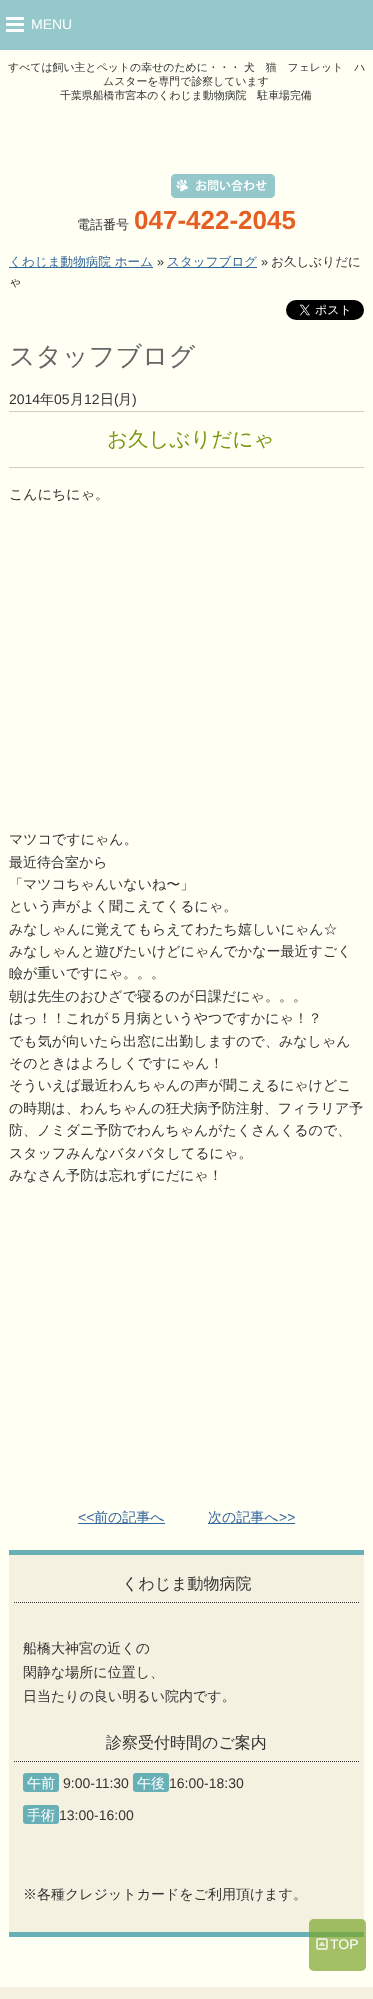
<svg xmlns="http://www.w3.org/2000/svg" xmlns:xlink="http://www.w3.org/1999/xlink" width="373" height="1999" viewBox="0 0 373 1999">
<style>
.cls-1{font:14px Liberation Sans;fill:#ffffff}
.cls-2{font:500 10.9px WenQuanYi Zen Hei;fill:#333333}
.cls-3{font:500 13px WenQuanYi Zen Hei;fill:#333333}
.cls-4{font:bold 26px Liberation Sans;fill:#e55f24}
.cls-5{font:500 12.6px WenQuanYi Zen Hei;fill:#336699}
.cls-6{font:12.6px Liberation Sans;fill:#333333}
.cls-7{font:500 12.6px WenQuanYi Zen Hei;fill:#333333}
.cls-8{font:500 26px WenQuanYi Zen Hei;fill:#666666}
.cls-9{font:14px Liberation Sans;fill:#333333}
.cls-10{font:500 14px WenQuanYi Zen Hei;fill:#333333}
.cls-11{font:500 20.5px WenQuanYi Zen Hei;fill:#7c9711}
.cls-12{font:14px Liberation Sans;fill:#336699}
.cls-13{font:500 14px WenQuanYi Zen Hei;fill:#336699}
.cls-14{font:500 16px WenQuanYi Zen Hei;fill:#333333}
.cls-15{font:500 14px WenQuanYi Zen Hei;fill:#ffffff}
</style>
<defs>
<clipPath id="clip1"><path d="M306 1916H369V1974H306ZM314 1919H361C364 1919 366 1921 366 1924V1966C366 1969 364 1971 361 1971H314C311 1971 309 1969 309 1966V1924C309 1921 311 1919 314 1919Z" clip-rule="evenodd"/></clipPath>
</defs>
<rect width="100%" height="100%" fill="#fffff4"/>
<rect fill="#95c8cb" x="0" y="0" width="373" height="50"/>
<image xlink:href="image0.png" x="6" y="17" width="18" height="15"/>
<image xlink:href="image1.png" x="171" y="174" width="104" height="24"/>
<rect fill="#336699" x="9" y="267" width="144" height="1"/>
<rect fill="#336699" x="167" y="267" width="90" height="1"/>
<image xlink:href="image2.png" x="286" y="300" width="78" height="20"/>
<rect fill="#cccccc" x="9" y="411" width="355" height="1"/>
<rect fill="#cccccc" x="9" y="467" width="355" height="1"/>
<rect fill="#336699" x="78" y="1523" width="87" height="1"/>
<rect fill="#336699" x="208" y="1523" width="87" height="1"/>
<rect fill="#f5f1e0" x="9" y="1555" width="355" height="377"/>
<rect fill="#67b0b5" x="9" y="1550" width="355" height="5"/>
<rect fill="#67b0b5" x="9" y="1932" width="355" height="5"/>
<path fill="none" stroke="#333333" stroke-dasharray="1 1" d="M14 1602.5H359"/>
<path fill="none" stroke="#333333" stroke-dasharray="1 1" d="M14 1761.5H359"/>
<rect fill="#67b0b5" x="23" y="1773" width="36" height="19" rx="3"/>
<rect fill="#67b0b5" x="133" y="1773" width="36" height="19" rx="3"/>
<rect fill="#67b0b5" x="23" y="1805" width="36" height="19" rx="3"/>
<g clip-path="url(#clip1)">
<rect fill="#7ca529" fill-opacity="0.7" filter="blur(0.5px)" x="309" y="1919" width="57" height="52" rx="5"/>
</g>
<rect fill="#7ca529" fill-opacity="0.7" x="309" y="1919" width="57" height="52" rx="5"/>
<image xlink:href="image3.png" x="316" y="1938" width="12" height="12"/>
<rect fill="#f5f1e0" x="0" y="1987" width="373" height="12"/>
<text class="cls-1" x="31" y="29">MENU</text>
<text class="cls-2" x="8" y="71">すべては飼い主とペットの幸せのために・・・</text>
<text class="cls-2" x="244" y="71">犬　猫　フェレット　ハ</text>
<text class="cls-2" x="103" y="85">ムスターを専門で診察しています</text>
<text class="cls-2" x="60" y="99">千葉県船橋市宮本のくわじま動物病院　駐車場完備</text>
<text class="cls-3" x="77" y="229">電話番号</text>
<text class="cls-4" x="134" y="229">047-422-2045</text>
<text class="cls-5" x="9" y="266">くわじま動物病院 ホーム</text>
<text class="cls-6" x="157" y="266">»</text>
<text class="cls-5" x="167" y="266">スタッフブログ</text>
<text class="cls-6" x="261" y="266">»</text>
<text class="cls-7" x="271" y="266">お久しぶりだに</text>
<text class="cls-7" x="9" y="286">ゃ</text>
<text class="cls-8" x="9" y="365">スタッフブログ</text>
<text class="cls-9" x="9" y="404">2014</text>
<text class="cls-10" x="40" y="404">年</text>
<text class="cls-9" x="54" y="404">05</text>
<text class="cls-10" x="70" y="404">月</text>
<text class="cls-9" x="84" y="404">12</text>
<text class="cls-10" x="100" y="404">日</text>
<text class="cls-9" x="114" y="404">(</text>
<text class="cls-10" x="118" y="404">月</text>
<text class="cls-9" x="132" y="404">)</text>
<text class="cls-11" x="107" y="446">お久しぶりだにゃ</text>
<text class="cls-10" x="9" y="499">こんにちにゃ。</text>
<text class="cls-10"><tspan x="9" y="844">マツコですにゃん。</tspan><tspan x="9" y="867">最近待合室から</tspan><tspan x="9" y="889">「マツコちゃんいないね〜」</tspan><tspan x="9" y="911">という声がよく聞こえてくるにゃ。</tspan><tspan x="9" y="934">みなしゃんに覚えてもらえてわたち嬉しいにゃん☆</tspan><tspan x="9" y="956">みなしゃんと遊びたいけどにゃんでかなー最近すごく</tspan><tspan x="9" y="978">瞼が重いですにゃ。。。</tspan><tspan x="9" y="1001">朝は先生のおひざで寝るのが日課だにゃ。。。</tspan><tspan x="9" y="1023">はっ！！これが５月病というやつですかにゃ！？</tspan><tspan x="9" y="1046">でも気が向いたら出窓に出勤しますので、みなしゃん</tspan><tspan x="9" y="1068">そのときはよろしくですにゃん！</tspan><tspan x="9" y="1090">そういえば最近わんちゃんの声が聞こえるにゃけどこ</tspan><tspan x="9" y="1113">の時期は、わんちゃんの狂犬病予防注射、フィラリア予</tspan><tspan x="9" y="1135">防、ノミダニ予防でわんちゃんがたくさんくるので、</tspan><tspan x="9" y="1158">スタッフみんなバタバタしてるにゃ。</tspan><tspan x="9" y="1180">みなさん予防は忘れずにだにゃ！</tspan></text>
<text class="cls-12" x="78" y="1522">&lt;&lt;</text>
<text class="cls-13" x="94" y="1522">前の記事へ</text>
<text class="cls-13" x="208" y="1522">次の記事へ</text>
<text class="cls-12" x="279" y="1522">&gt;&gt;</text>
<text class="cls-14" x="122" y="1589">くわじま動物病院</text>
<text class="cls-10"><tspan x="23" y="1653">船橋大神宮の近くの</tspan><tspan x="23" y="1677">閑静な場所に位置し、</tspan><tspan x="23" y="1701">日当たりの良い明るい院内です。</tspan></text>
<text class="cls-14" x="106" y="1748">診察受付時間のご案内</text>
<text class="cls-15" x="27" y="1788">午前</text>
<text class="cls-9" x="63" y="1788">9:00-11:30</text>
<text class="cls-15" x="137" y="1788">午後</text>
<text class="cls-9" x="169" y="1788">16:00-18:30</text>
<text class="cls-15" x="27" y="1820">手術</text>
<text class="cls-9" x="59" y="1820">13:00-16:00</text>
<text class="cls-10" x="23" y="1899">※各種クレジットカードをご利用頂けます。</text>
<text class="cls-1" x="330" y="1949">TOP</text>
</svg>
